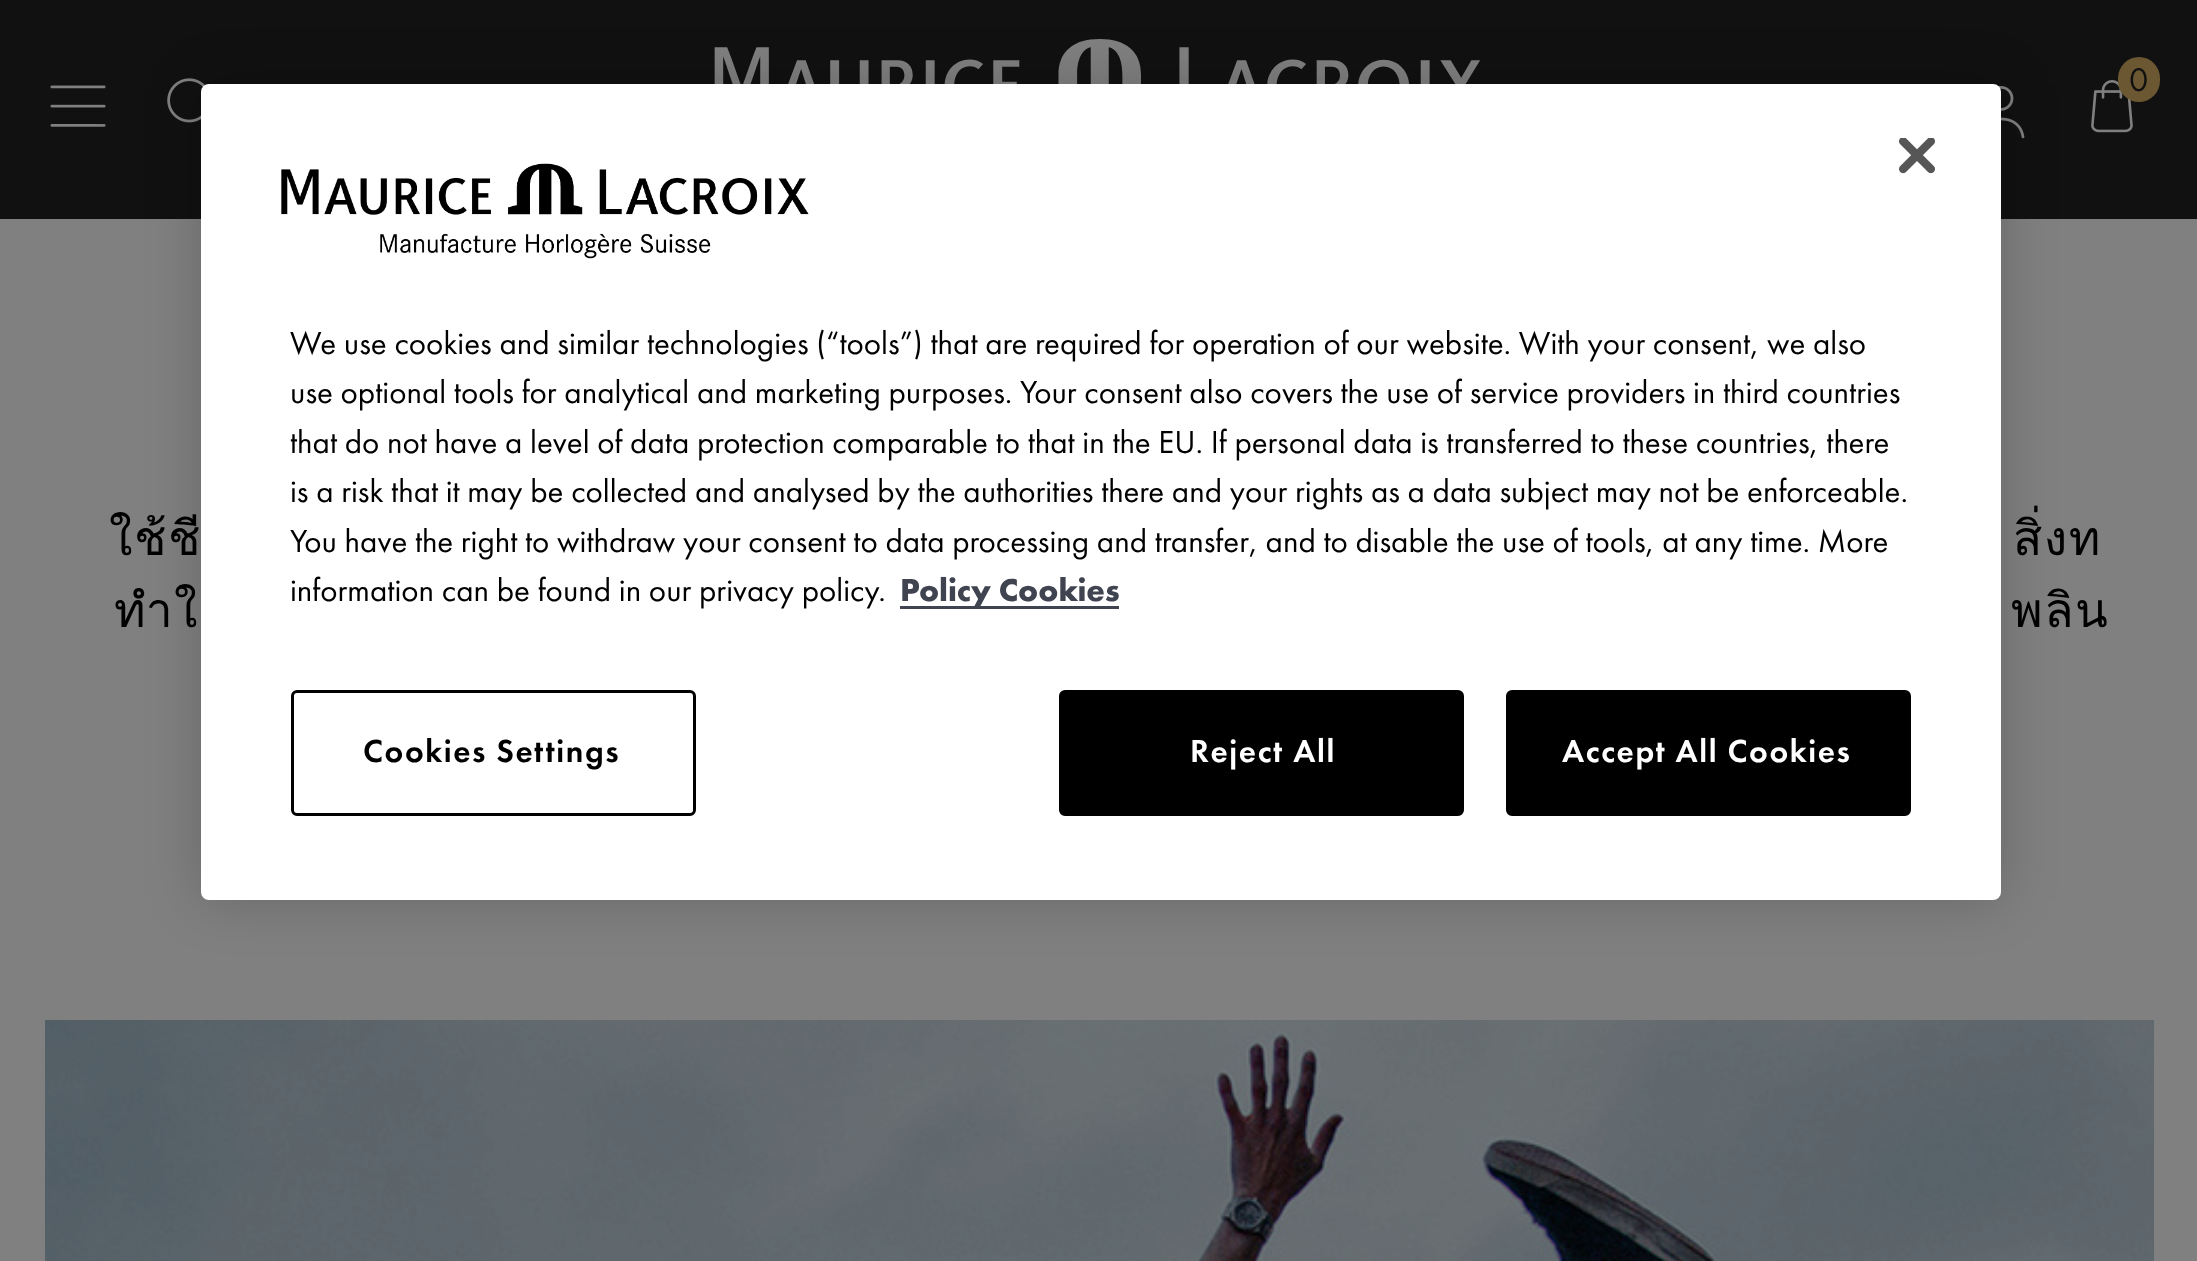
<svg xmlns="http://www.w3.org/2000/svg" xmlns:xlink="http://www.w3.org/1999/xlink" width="2197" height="1261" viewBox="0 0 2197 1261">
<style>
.cls-1{font:34px Futura PT;fill:#111111}
.cls-2{font:48px Loma;letter-spacing:1.5px;fill:#000000}
.cls-3{font:33px Futura PT;fill:#000000}
.cls-4{font:bold 33px Futura PT;fill:#3f4450}
.cls-5{font:500 33px Futura PT;letter-spacing:1.6px;fill:#000000}
.cls-6{font:500 33px Futura PT;letter-spacing:1.6px;fill:#ffffff}
</style>
<rect width="100%" height="100%" fill="#808080"/>
<rect fill="#111111" x="0" y="0" width="2197" height="219"/>
<image xlink:href="image0.png" x="50" y="85" width="56" height="42"/>
<image xlink:href="image1.png" x="167" y="78" width="39" height="45"/>
<image xlink:href="image2.png" x="714" y="39" width="766" height="45"/>
<image xlink:href="image3.png" x="2091" y="80" width="42" height="53"/>
<rect fill="#6b5731" x="2118" y="57" width="42" height="45" rx="21"/>
<image xlink:href="image4.png" x="1998" y="86" width="27" height="53"/>
<image xlink:href="image5.png" x="45" y="1020" width="2109" height="241"/>
<rect fill="#000000" fill-opacity="0.2" filter="blur(27px)" x="201" y="84" width="1800" height="816" rx="8"/>
<text class="cls-1" x="2129" y="91">0</text>
<text class="cls-2" x="109" y="555">ใช้ชี</text>
<text class="cls-2" x="2013" y="555" word-spacing="-8">สิ่งท</text>
<text class="cls-2" x="114" y="627" word-spacing="-8">ทำใ</text>
<text class="cls-2" x="2011" y="627" word-spacing="-8">พลิน</text>
<rect fill="#ffffff" x="201" y="84" width="1800" height="816" rx="8"/>
<image xlink:href="image6.png" x="1899" y="138" width="36" height="36"/>
<image xlink:href="image7.png" x="281" y="163" width="528" height="96"/>
<text class="cls-3"><tspan x="290" y="354">We use cookies and similar technologies (“tools”) that are required for operation of our website. With your consent, we also</tspan><tspan x="290" y="403">use optional tools for analytical and marketing purposes. Your consent also covers the use of service providers in third countries</tspan><tspan x="290" y="453">that do not have a level of data protection comparable to that in the EU. If personal data is transferred to these countries, there</tspan><tspan x="290" y="502">is a risk that it may be collected and analysed by the authorities there and your rights as a data subject may not be enforceable.</tspan><tspan x="290" y="552">You have the right to withdraw your consent to data processing and transfer, and to disable the use of tools, at any time. More</tspan><tspan x="290" y="601">information can be found in our privacy policy.</tspan></text>
<rect fill="#3f4450" x="900" y="606" width="219" height="3"/>
<text class="cls-4" x="900" y="601">Policy Cookies</text>
<rect fill="none" stroke="#000000" stroke-width="3" x="292.5" y="691.5" width="402" height="123" rx="4.5"/>
<text class="cls-5" x="363" y="762">Cookies Settings</text>
<rect fill="#000000" stroke="#000000" stroke-width="3" x="1060.5" y="691.5" width="402" height="123" rx="4.5"/>
<text class="cls-6" x="1190" y="762">Reject All</text>
<rect fill="#000000" stroke="#000000" stroke-width="3" x="1507.5" y="691.5" width="402" height="123" rx="4.5"/>
<text class="cls-6" x="1562" y="762">Accept All Cookies</text>
</svg>
